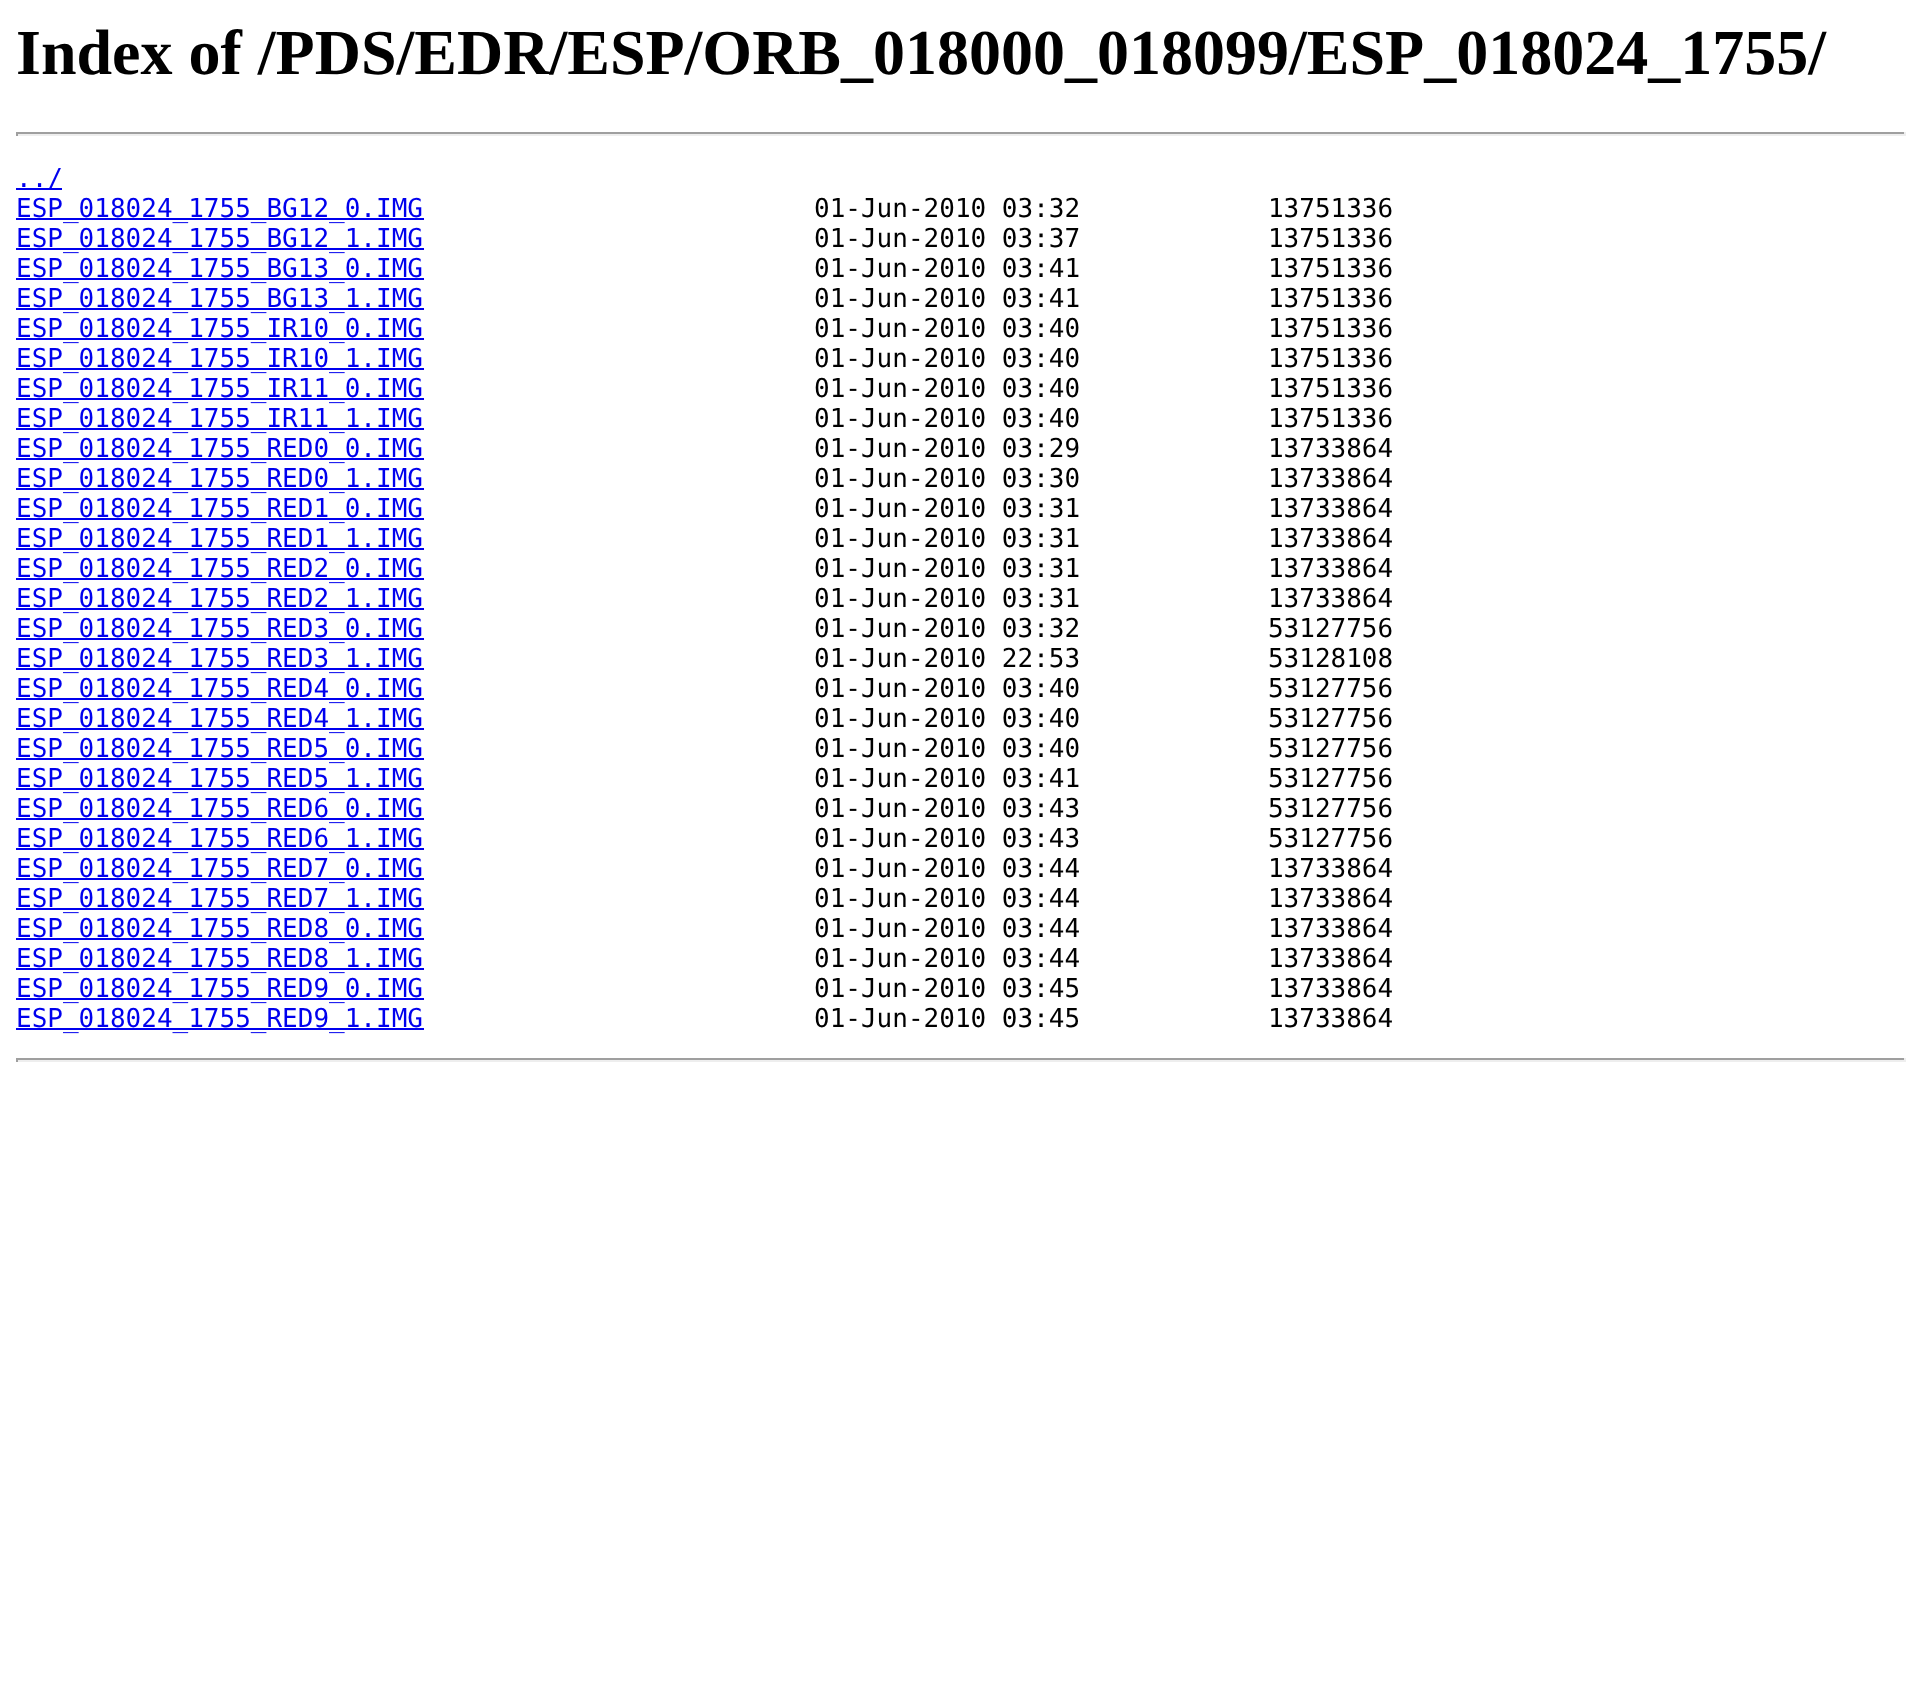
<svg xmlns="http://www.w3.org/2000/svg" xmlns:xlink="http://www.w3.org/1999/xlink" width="1922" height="1708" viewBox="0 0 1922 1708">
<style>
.cls-1{font:bold 64px Liberation Serif;fill:#000000}
.cls-2{font:26px DejaVu Sans Mono;fill:#0000ee}
.cls-3{font:26px DejaVu Sans Mono;fill:#000000}
</style>
<rect width="100%" height="100%" fill="#ffffff"/>
<rect fill="#9f9f9f" x="16" y="132" width="1890" height="2"/>
<rect fill="#eeeeee" x="1904" y="132" width="2" height="4"/>
<rect fill="#eeeeee" x="16" y="134" width="1890" height="2"/>
<rect fill="#9f9f9f" x="16" y="132" width="2" height="4"/>
<rect fill="#0000ee" x="16" y="188" width="46" height="2"/>
<rect fill="#0000ee" x="16" y="218" width="408" height="2"/>
<rect fill="#0000ee" x="16" y="248" width="408" height="2"/>
<rect fill="#0000ee" x="16" y="278" width="408" height="2"/>
<rect fill="#0000ee" x="16" y="308" width="408" height="2"/>
<rect fill="#0000ee" x="16" y="338" width="408" height="2"/>
<rect fill="#0000ee" x="16" y="368" width="408" height="2"/>
<rect fill="#0000ee" x="16" y="398" width="408" height="2"/>
<rect fill="#0000ee" x="16" y="428" width="408" height="2"/>
<rect fill="#0000ee" x="16" y="458" width="408" height="2"/>
<rect fill="#0000ee" x="16" y="488" width="408" height="2"/>
<rect fill="#0000ee" x="16" y="518" width="408" height="2"/>
<rect fill="#0000ee" x="16" y="548" width="408" height="2"/>
<rect fill="#0000ee" x="16" y="578" width="408" height="2"/>
<rect fill="#0000ee" x="16" y="608" width="408" height="2"/>
<rect fill="#0000ee" x="16" y="638" width="408" height="2"/>
<rect fill="#0000ee" x="16" y="668" width="408" height="2"/>
<rect fill="#0000ee" x="16" y="698" width="408" height="2"/>
<rect fill="#0000ee" x="16" y="728" width="408" height="2"/>
<rect fill="#0000ee" x="16" y="758" width="408" height="2"/>
<rect fill="#0000ee" x="16" y="788" width="408" height="2"/>
<rect fill="#0000ee" x="16" y="818" width="408" height="2"/>
<rect fill="#0000ee" x="16" y="848" width="408" height="2"/>
<rect fill="#0000ee" x="16" y="878" width="408" height="2"/>
<rect fill="#0000ee" x="16" y="908" width="408" height="2"/>
<rect fill="#0000ee" x="16" y="938" width="408" height="2"/>
<rect fill="#0000ee" x="16" y="968" width="408" height="2"/>
<rect fill="#0000ee" x="16" y="998" width="408" height="2"/>
<rect fill="#0000ee" x="16" y="1028" width="408" height="2"/>
<rect fill="#9f9f9f" x="16" y="1058" width="1890" height="2"/>
<rect fill="#eeeeee" x="1904" y="1058" width="2" height="4"/>
<rect fill="#eeeeee" x="16" y="1060" width="1890" height="2"/>
<rect fill="#9f9f9f" x="16" y="1058" width="2" height="4"/>
<text class="cls-1" x="16" y="74">Index of /PDS/EDR/ESP/ORB_018000_018099/ESP_018024_1755/</text>
<text class="cls-2"><tspan x="16" y="187">../</tspan><tspan x="16" y="217">ESP_018024_1755_BG12_0.IMG</tspan></text>
<text class="cls-3" xml:space="preserve" x="814" y="217">01-Jun-2010 03:32            13751336</text>
<text class="cls-2" x="16" y="247">ESP_018024_1755_BG12_1.IMG</text>
<text class="cls-3" xml:space="preserve" x="814" y="247">01-Jun-2010 03:37            13751336</text>
<text class="cls-2" x="16" y="277">ESP_018024_1755_BG13_0.IMG</text>
<text class="cls-3" xml:space="preserve" x="814" y="277">01-Jun-2010 03:41            13751336</text>
<text class="cls-2" x="16" y="307">ESP_018024_1755_BG13_1.IMG</text>
<text class="cls-3" xml:space="preserve" x="814" y="307">01-Jun-2010 03:41            13751336</text>
<text class="cls-2" x="16" y="337">ESP_018024_1755_IR10_0.IMG</text>
<text class="cls-3" xml:space="preserve" x="814" y="337">01-Jun-2010 03:40            13751336</text>
<text class="cls-2" x="16" y="367">ESP_018024_1755_IR10_1.IMG</text>
<text class="cls-3" xml:space="preserve" x="814" y="367">01-Jun-2010 03:40            13751336</text>
<text class="cls-2" x="16" y="397">ESP_018024_1755_IR11_0.IMG</text>
<text class="cls-3" xml:space="preserve" x="814" y="397">01-Jun-2010 03:40            13751336</text>
<text class="cls-2" x="16" y="427">ESP_018024_1755_IR11_1.IMG</text>
<text class="cls-3" xml:space="preserve" x="814" y="427">01-Jun-2010 03:40            13751336</text>
<text class="cls-2" x="16" y="457">ESP_018024_1755_RED0_0.IMG</text>
<text class="cls-3" xml:space="preserve" x="814" y="457">01-Jun-2010 03:29            13733864</text>
<text class="cls-2" x="16" y="487">ESP_018024_1755_RED0_1.IMG</text>
<text class="cls-3" xml:space="preserve" x="814" y="487">01-Jun-2010 03:30            13733864</text>
<text class="cls-2" x="16" y="517">ESP_018024_1755_RED1_0.IMG</text>
<text class="cls-3" xml:space="preserve" x="814" y="517">01-Jun-2010 03:31            13733864</text>
<text class="cls-2" x="16" y="547">ESP_018024_1755_RED1_1.IMG</text>
<text class="cls-3" xml:space="preserve" x="814" y="547">01-Jun-2010 03:31            13733864</text>
<text class="cls-2" x="16" y="577">ESP_018024_1755_RED2_0.IMG</text>
<text class="cls-3" xml:space="preserve" x="814" y="577">01-Jun-2010 03:31            13733864</text>
<text class="cls-2" x="16" y="607">ESP_018024_1755_RED2_1.IMG</text>
<text class="cls-3" xml:space="preserve" x="814" y="607">01-Jun-2010 03:31            13733864</text>
<text class="cls-2" x="16" y="637">ESP_018024_1755_RED3_0.IMG</text>
<text class="cls-3" xml:space="preserve" x="814" y="637">01-Jun-2010 03:32            53127756</text>
<text class="cls-2" x="16" y="667">ESP_018024_1755_RED3_1.IMG</text>
<text class="cls-3" xml:space="preserve" x="814" y="667">01-Jun-2010 22:53            53128108</text>
<text class="cls-2" x="16" y="697">ESP_018024_1755_RED4_0.IMG</text>
<text class="cls-3" xml:space="preserve" x="814" y="697">01-Jun-2010 03:40            53127756</text>
<text class="cls-2" x="16" y="727">ESP_018024_1755_RED4_1.IMG</text>
<text class="cls-3" xml:space="preserve" x="814" y="727">01-Jun-2010 03:40            53127756</text>
<text class="cls-2" x="16" y="757">ESP_018024_1755_RED5_0.IMG</text>
<text class="cls-3" xml:space="preserve" x="814" y="757">01-Jun-2010 03:40            53127756</text>
<text class="cls-2" x="16" y="787">ESP_018024_1755_RED5_1.IMG</text>
<text class="cls-3" xml:space="preserve" x="814" y="787">01-Jun-2010 03:41            53127756</text>
<text class="cls-2" x="16" y="817">ESP_018024_1755_RED6_0.IMG</text>
<text class="cls-3" xml:space="preserve" x="814" y="817">01-Jun-2010 03:43            53127756</text>
<text class="cls-2" x="16" y="847">ESP_018024_1755_RED6_1.IMG</text>
<text class="cls-3" xml:space="preserve" x="814" y="847">01-Jun-2010 03:43            53127756</text>
<text class="cls-2" x="16" y="877">ESP_018024_1755_RED7_0.IMG</text>
<text class="cls-3" xml:space="preserve" x="814" y="877">01-Jun-2010 03:44            13733864</text>
<text class="cls-2" x="16" y="907">ESP_018024_1755_RED7_1.IMG</text>
<text class="cls-3" xml:space="preserve" x="814" y="907">01-Jun-2010 03:44            13733864</text>
<text class="cls-2" x="16" y="937">ESP_018024_1755_RED8_0.IMG</text>
<text class="cls-3" xml:space="preserve" x="814" y="937">01-Jun-2010 03:44            13733864</text>
<text class="cls-2" x="16" y="967">ESP_018024_1755_RED8_1.IMG</text>
<text class="cls-3" xml:space="preserve" x="814" y="967">01-Jun-2010 03:44            13733864</text>
<text class="cls-2" x="16" y="997">ESP_018024_1755_RED9_0.IMG</text>
<text class="cls-3" xml:space="preserve" x="814" y="997">01-Jun-2010 03:45            13733864</text>
<text class="cls-2" x="16" y="1027">ESP_018024_1755_RED9_1.IMG</text>
<text class="cls-3" xml:space="preserve" x="814" y="1027">01-Jun-2010 03:45            13733864</text>
</svg>
